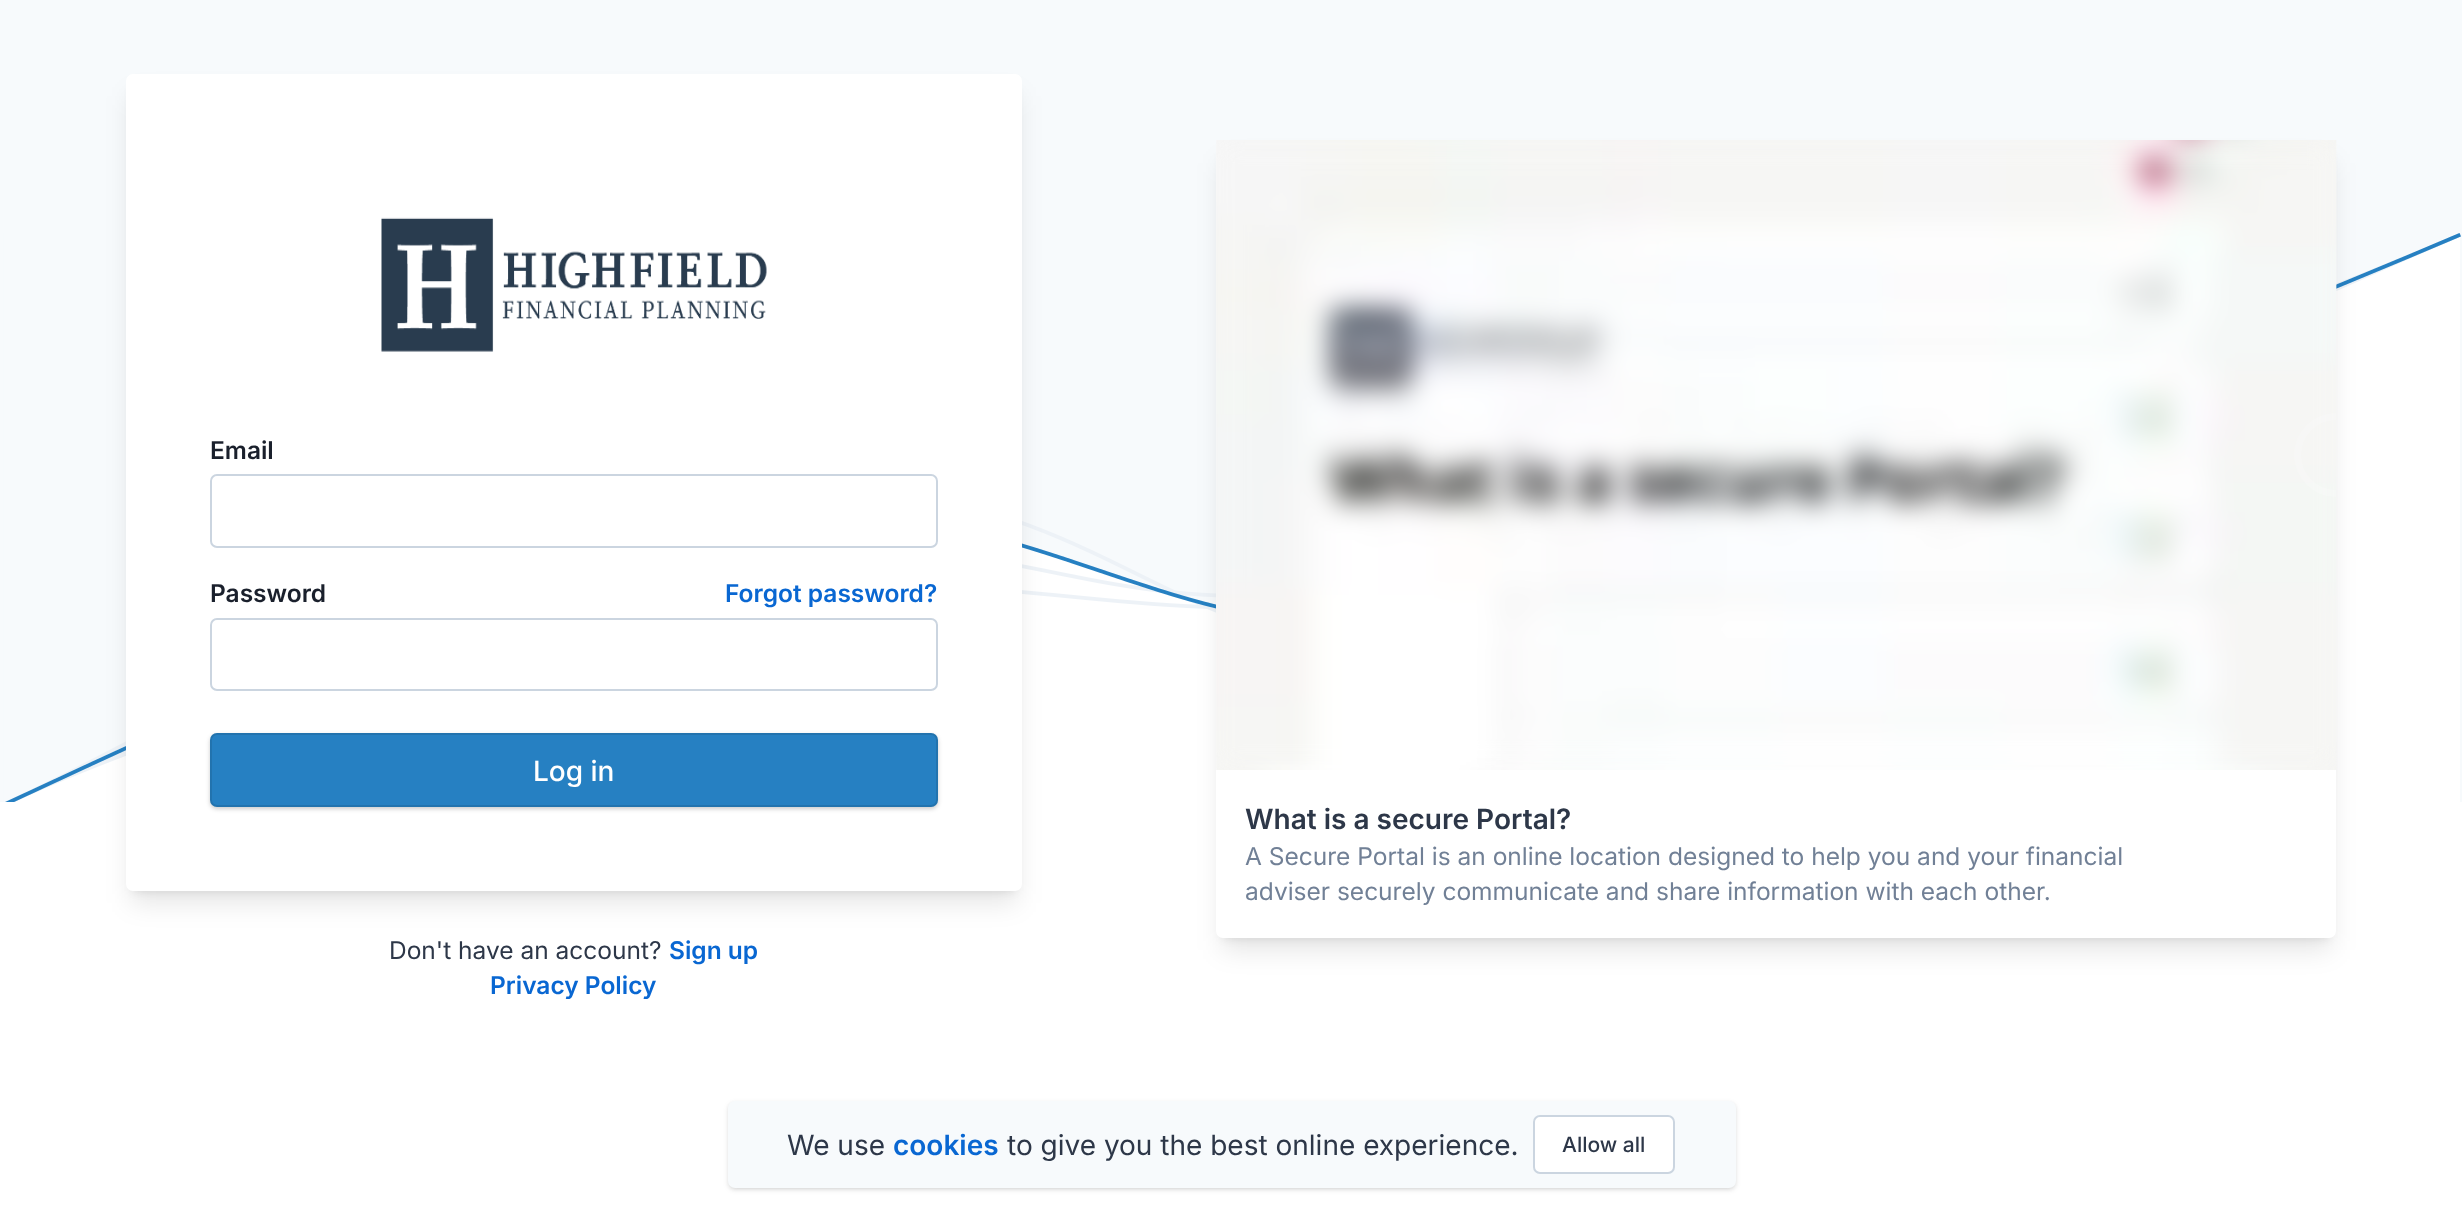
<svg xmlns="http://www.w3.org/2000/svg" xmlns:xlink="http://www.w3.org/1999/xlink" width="2462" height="1216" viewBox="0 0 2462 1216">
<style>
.cls-1{font:600 24.5px Inter;fill:#1a202c}
.cls-2{font:600 24.5px Inter;fill:#0967d2}
.cls-3{font:500 28px Inter;fill:#ffffff}
.cls-4{font:24.5px Inter;fill:#2d3748}
.cls-5{font:600 28px Inter;fill:#2d3748}
.cls-6{font:24.5px Inter;fill:#718096}
.cls-7{font:28px Inter;fill:#2d3748}
.cls-8{font:600 28px Inter;fill:#0967d2}
.cls-9{font:500 21px Inter;fill:#2d3748}
</style>
<rect width="100%" height="100%" fill="#f7fafc"/>
<image xlink:href="image0.png" x="3" y="233" width="2458" height="569"/>
<rect fill="#ffffff" x="0" y="802" width="2462" height="414"/>
<rect fill="#000000" fill-opacity="0.1" filter="blur(5px)" x="133" y="88" width="882" height="803"/>
<rect fill="#000000" fill-opacity="0.1" filter="blur(13px)" x="131" y="96" width="886" height="807" rx="2"/>
<rect fill="#ffffff" x="126" y="74" width="896" height="817" rx="7"/>
<image xlink:href="image1.png" x="381" y="217" width="386" height="135"/>
<rect fill="none" stroke="#cbd5e0" stroke-width="2" x="211" y="475" width="726" height="72" rx="6"/>
<rect fill="none" stroke="#cbd5e0" stroke-width="2" x="211" y="619" width="726" height="71" rx="6"/>
<rect fill="#000000" fill-opacity="0.2" filter="blur(2px)" x="210" y="735" width="728" height="74" rx="7"/>
<rect fill="#2680c2" x="210" y="733" width="728" height="74" rx="7"/>
<rect fill="none" stroke="#000000" stroke-opacity="0.1" stroke-width="2" x="211" y="734" width="726" height="72" rx="6"/>
<rect fill="#000000" fill-opacity="0.1" filter="blur(5px)" x="1223" y="154" width="1106" height="784"/>
<rect fill="#000000" fill-opacity="0.1" filter="blur(13px)" x="1222" y="163" width="1109" height="787" rx="2"/>
<rect fill="#ffffff" x="1216" y="140" width="1120" height="798" rx="7"/>
<image xlink:href="image2.png" x="1216" y="140" width="1121" height="630"/>
<rect fill="#000000" fill-opacity="0.1" filter="blur(2px)" x="730" y="1104" width="1004" height="84" rx="5"/>
<rect fill="#000000" fill-opacity="0.1" filter="blur(2.5px)" x="728" y="1103" width="1008" height="87" rx="7"/>
<rect fill="#f7fafc" x="728" y="1101" width="1008" height="87" rx="7"/>
<rect fill="#ffffff" stroke="#cbd5e0" stroke-width="2" x="1534" y="1116" width="140" height="57" rx="6"/>
<text class="cls-1" x="210" y="459">Email</text>
<text class="cls-1" x="210" y="602">Password</text>
<text class="cls-2" x="725" y="602">Forgot password?</text>
<text class="cls-3" x="533" y="781">Log in</text>
<text class="cls-4" x="389" y="959">Don't have an account?</text>
<text class="cls-2" x="669" y="959">Sign up</text>
<text class="cls-2" x="490" y="994">Privacy Policy</text>
<text class="cls-5" x="1245" y="829">What is a secure Portal?</text>
<text class="cls-6"><tspan x="1245" y="865">A Secure Portal is an online location designed to help you and your financial</tspan><tspan x="1245" y="900">adviser securely communicate and share information with each other.</tspan></text>
<text class="cls-7" x="787" y="1155">We use</text>
<text class="cls-8" x="893" y="1155">cookies</text>
<text class="cls-7" x="1007" y="1155">to give you the best online experience.</text>
<text class="cls-9" x="1562" y="1152">Allow all</text>
</svg>
